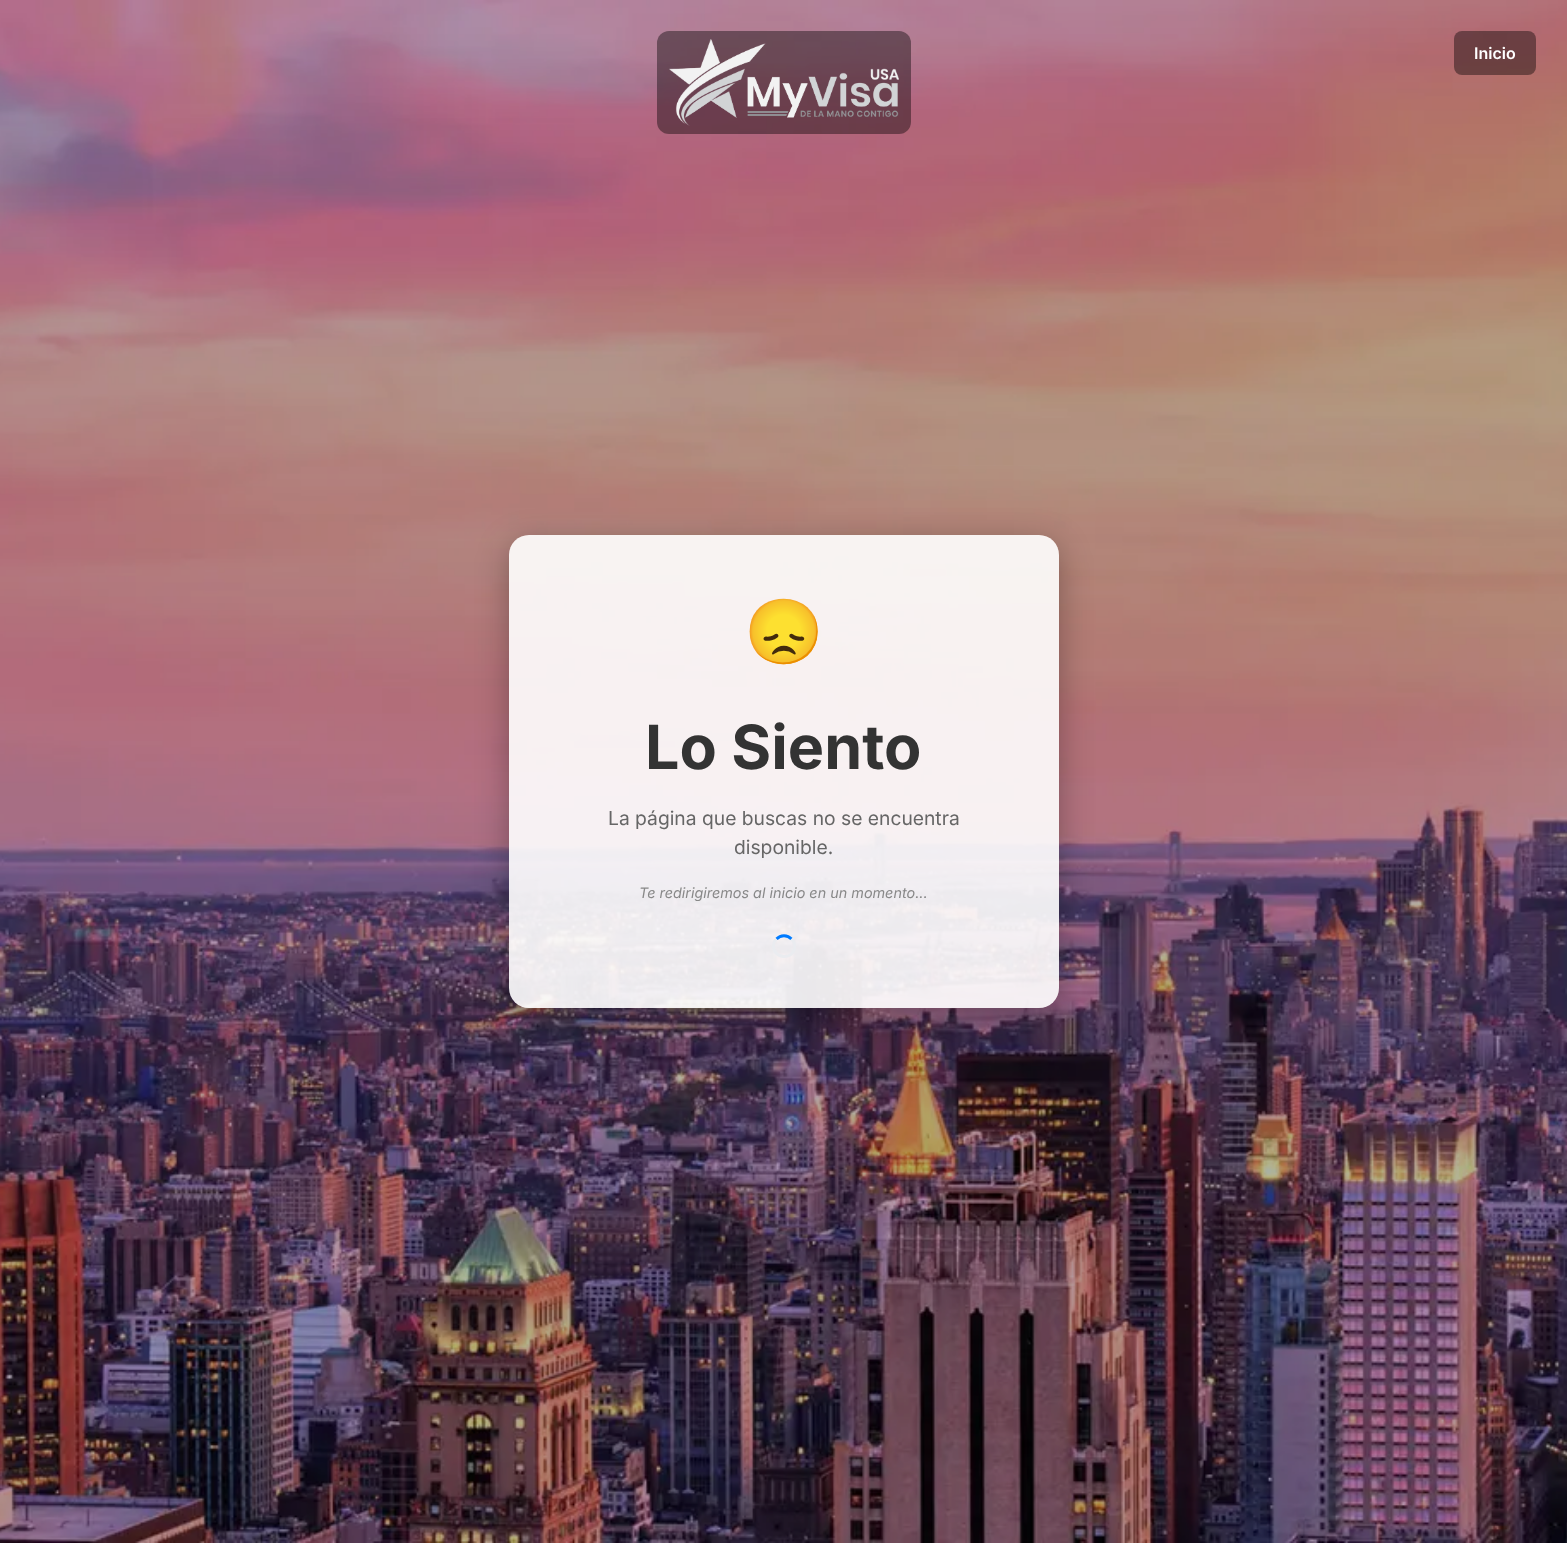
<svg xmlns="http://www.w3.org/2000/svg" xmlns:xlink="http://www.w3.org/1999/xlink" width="1567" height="1543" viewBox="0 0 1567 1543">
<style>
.cls-1{font:600 16px Inter;fill:#ffffff}
.cls-2{font:64px Noto Color Emoji;fill:#212529}
.cls-3{font:bold 61px Inter;fill:#333333}
.cls-4{font:19.25px Inter;fill:#666666}
.cls-5{font:italic 14.4px Inter;fill:#888888}
</style>
<defs>
<clipPath id="clip1"><path d="M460 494H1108V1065H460ZM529 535H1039C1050 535 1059 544 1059 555V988C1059 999 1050 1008 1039 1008H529C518 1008 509 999 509 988V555C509 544 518 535 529 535Z" clip-rule="evenodd"/></clipPath>
</defs>
<rect width="100%" height="100%" fill="#ffffff"/>
<image xlink:href="image0.png" x="0" y="0" width="1567" height="1543"/>
<rect fill="#000000" fill-opacity="0.4" x="657" y="31" width="254" height="103" rx="12"/>
<image xlink:href="image1.png" x="669" y="39" width="230" height="87"/>
<rect fill="#000000" fill-opacity="0.4" x="1454" y="31" width="82" height="44" rx="8"/>
<g clip-path="url(#clip1)">
<rect fill="#000000" fill-opacity="0.3" filter="blur(16px)" x="509" y="543" width="550" height="473" rx="20"/>
</g>
<rect fill="#ffffff" fill-opacity="0.9" x="509" y="535" width="550" height="473" rx="20"/>
<path fill="none" stroke="#007bff" stroke-width="3" d="M776.5 939C780.5 934.5 787.5 934.5 791.5 939"/>
<path fill="none" stroke="#eaecf0" stroke-width="3" d="M791.5 939C794 941 795 945 794.5 948.5C792 960.5 773.5 958.5 773.5 946C773.5 943.5 774.5 940.5 776.5 939"/>
<text class="cls-1" x="1474" y="59">Inicio</text>
<text class="cls-2" x="744" y="654">😞</text>
<text class="cls-3" x="645" y="769">Lo Siento</text>
<text class="cls-4" x="608" y="825">La página que buscas no se encuentra</text>
<text class="cls-4" x="734" y="854">disponible.</text>
<text class="cls-5" x="639" y="898">Te redirigiremos al inicio en un momento...</text>
</svg>
